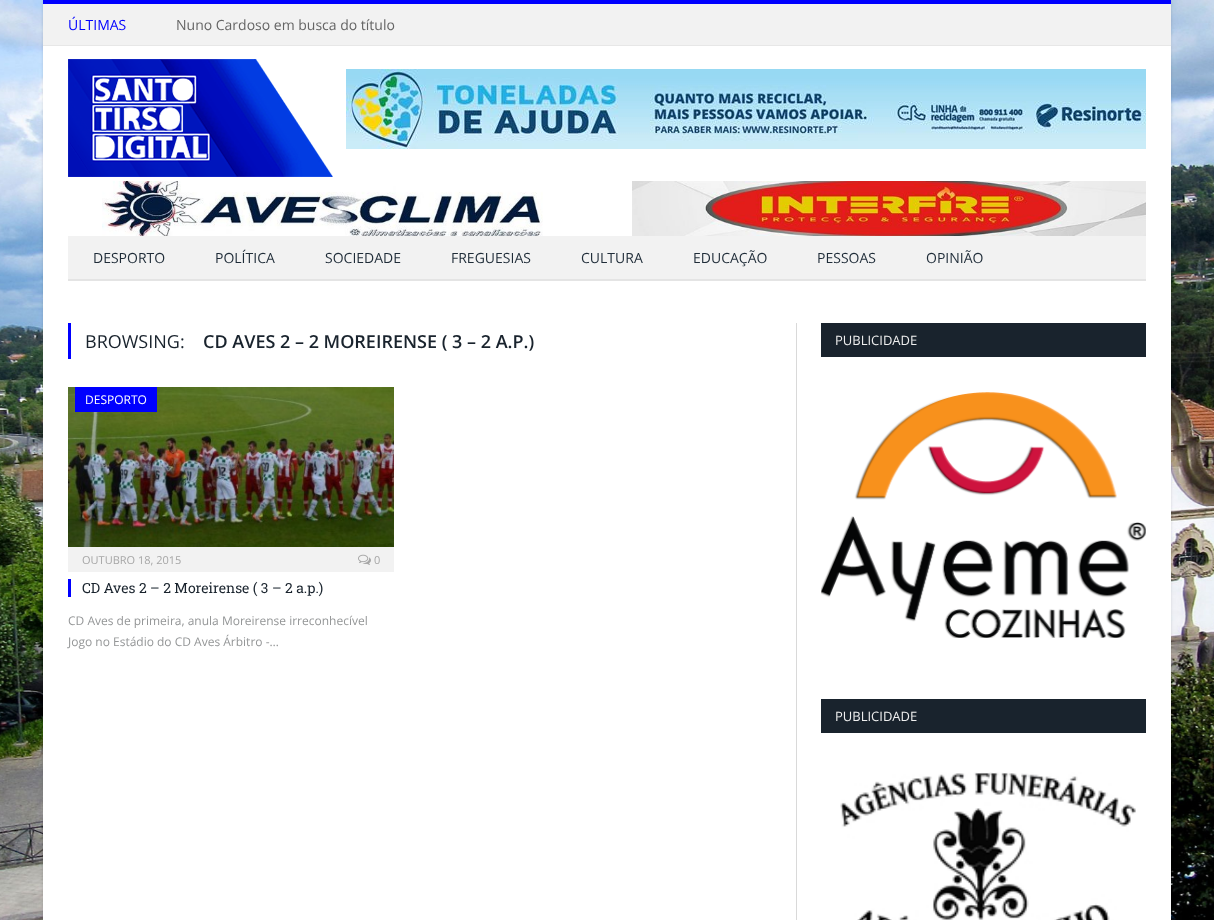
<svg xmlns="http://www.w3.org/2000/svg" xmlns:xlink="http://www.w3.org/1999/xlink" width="1214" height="920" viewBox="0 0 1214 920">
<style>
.cls-1{font:14px Open Sans;fill:#0000ff}
.cls-2{font:14px Open Sans;fill:#656565}
.cls-3{font:14px Open Sans;fill:#1f2c38}
.cls-4{font:18px Open Sans;fill:#19232d}
.cls-5{font:600 18px Open Sans;fill:#19232d}
.cls-6{font:12px Open Sans;fill:#ffffff}
.cls-7{font:11px Open Sans;fill:#a6a6a6}
.cls-8{font:14px Roboto Slab;fill:#19232d}
.cls-9{font:12px Open Sans;fill:#949697}
.cls-10{font:13px Open Sans;fill:#efefef}
</style>
<rect width="100%" height="100%" fill="#ffffff"/>
<image xlink:href="image0.png" x="0" y="0" width="1214" height="920"/>
<rect fill="#000000" fill-opacity="0.12" filter="blur(1.5px)" x="43" y="0" width="1128" height="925"/>
<rect fill="#ffffff" x="43" y="46" width="1128" height="874"/>
<rect fill="#f2f2f2" x="43" y="4" width="1128" height="41"/>
<rect fill="#0000ff" x="43" y="0" width="1128" height="4"/>
<rect fill="#e7e7e7" x="43" y="45" width="1128" height="1"/>
<image xlink:href="image1.png" x="68" y="59" width="265" height="118"/>
<image xlink:href="image2.png" x="346" y="69" width="800" height="80"/>
<image xlink:href="image3.png" x="102" y="181" width="441" height="55"/>
<image xlink:href="image4.png" x="632" y="181" width="514" height="55"/>
<rect fill="#f2f2f2" x="68" y="236" width="1078" height="43"/>
<rect fill="#e4e4e4" x="68" y="279" width="1078" height="2"/>
<rect fill="#0000ff" x="68" y="323" width="3" height="36"/>
<image xlink:href="image5.png" x="68" y="387" width="326" height="160"/>
<rect fill="#0000ff" x="75" y="387" width="82" height="25"/>
<rect fill="#f2f2f2" x="68" y="547" width="326" height="25"/>
<image xlink:href="image6.png" x="358" y="554" width="13" height="11"/>
<rect fill="#0000ff" x="68" y="579" width="3" height="18"/>
<rect fill="#d9d9d9" x="796" y="323" width="1" height="597"/>
<rect fill="#19232d" x="821" y="323" width="325" height="34"/>
<image xlink:href="image7.png" x="821" y="392" width="325" height="246"/>
<rect fill="#19232d" x="821" y="699" width="325" height="34"/>
<image xlink:href="image8.png" x="840" y="772" width="296" height="148"/>
<text class="cls-1" x="68" y="30">ÚLTIMAS</text>
<text class="cls-2" x="176" y="30">Nuno Cardoso em busca do título</text>
<text class="cls-3" x="93" y="263">DESPORTO</text>
<text class="cls-3" x="215" y="263">POLÍTICA</text>
<text class="cls-3" x="325" y="263">SOCIEDADE</text>
<text class="cls-3" x="451" y="263">FREGUESIAS</text>
<text class="cls-3" x="581" y="263">CULTURA</text>
<text class="cls-3" x="693" y="263">EDUCAÇÃO</text>
<text class="cls-3" x="817" y="263">PESSOAS</text>
<text class="cls-3" x="926" y="263">OPINIÃO</text>
<text class="cls-4" x="85" y="348">BROWSING:</text>
<text class="cls-5" x="203" y="348">CD AVES 2 – 2 MOREIRENSE ( 3 – 2 A.P.)</text>
<text class="cls-6" x="85" y="404">DESPORTO</text>
<text class="cls-7" x="82" y="564">OUTUBRO 18, 2015</text>
<text class="cls-7" x="374" y="564">0</text>
<text class="cls-8" x="82" y="593">CD Aves 2 – 2 Moreirense ( 3 – 2 a.p.)</text>
<text class="cls-9"><tspan x="68" y="625">CD Aves de primeira, anula Moreirense irreconhecível</tspan><tspan x="68" y="646">Jogo no Estádio do CD Aves Árbitro -…</tspan></text>
<text class="cls-10" x="835" y="345">PUBLICIDADE</text>
<text class="cls-10" x="835" y="721">PUBLICIDADE</text>
</svg>
